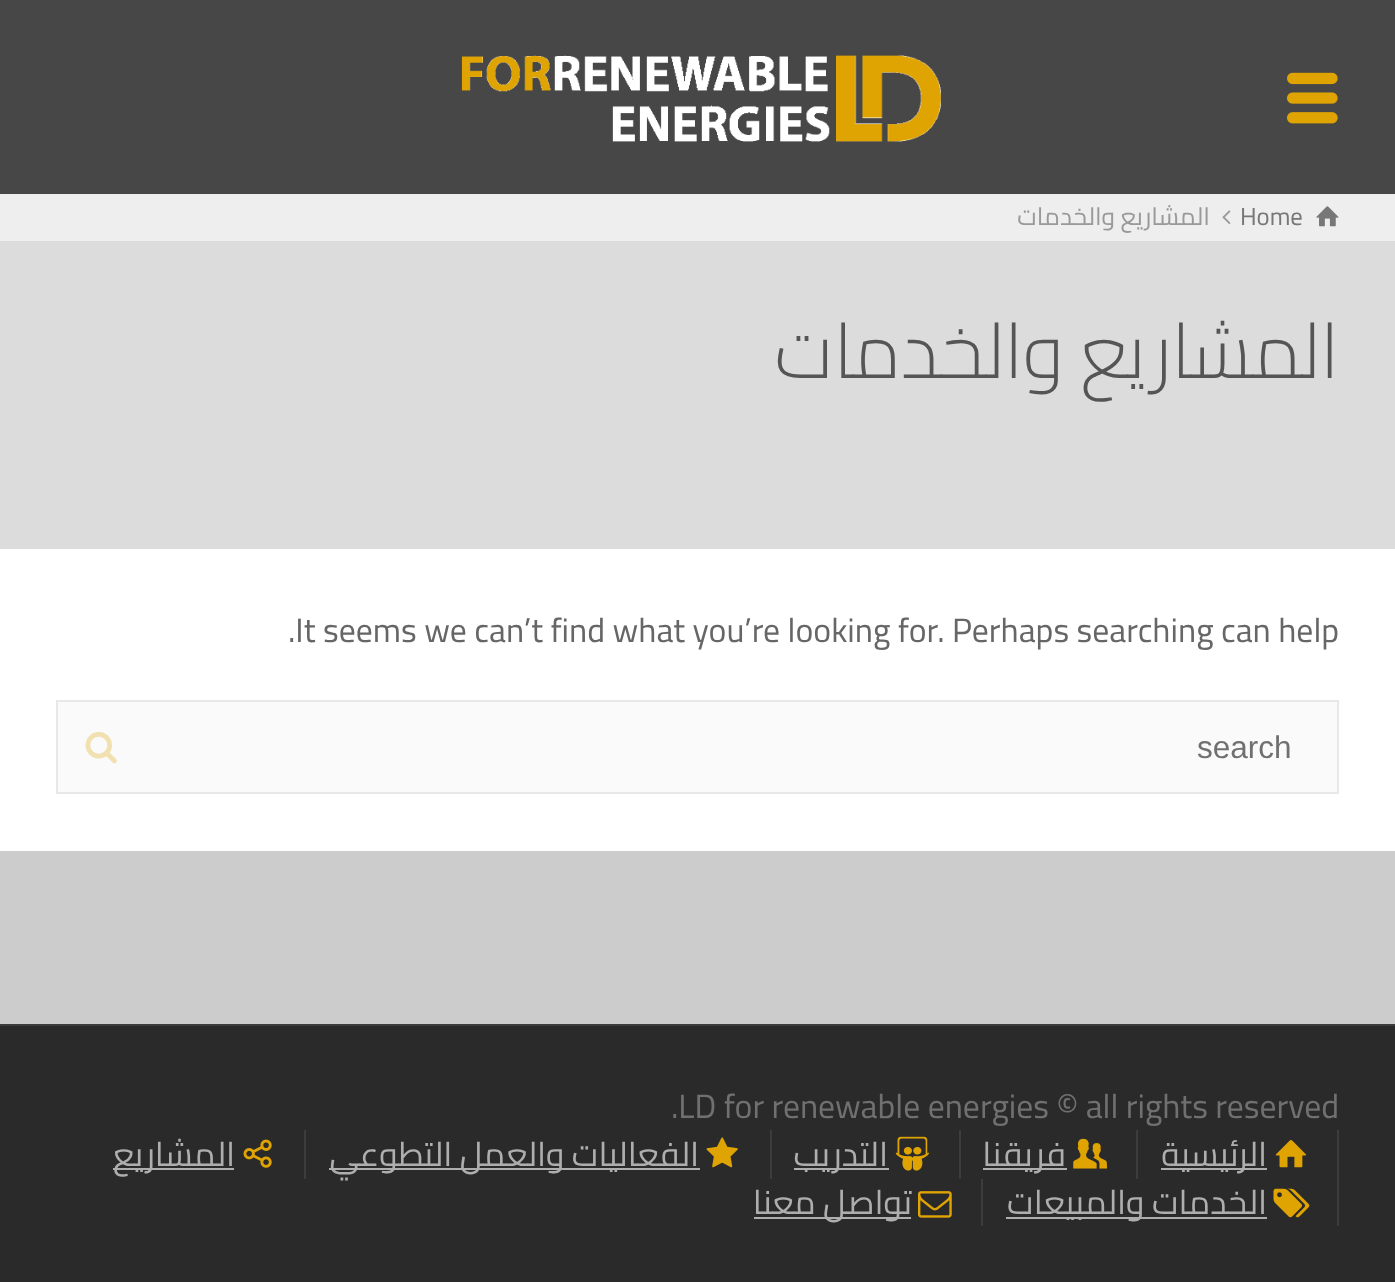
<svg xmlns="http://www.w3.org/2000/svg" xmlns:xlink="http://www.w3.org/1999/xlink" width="1395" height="1282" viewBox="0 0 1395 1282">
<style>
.cls-1{font:24.75px Cairo;direction:rtl;fill:#999999}
.cls-2{font:24.75px Cairo;fill:#777777}
.cls-3{font:300 76.5px Cairo;direction:rtl;fill:#555555}
.cls-4{font:33.75px Cairo;fill:#666666}
.cls-5{font:31.5px Liberation Sans;fill:#707070}
.cls-6{font:33.75px Cairo;fill:#707070}
.cls-7{font:33.75px Cairo;direction:rtl;fill:#aeaeae}
</style>
<rect width="100%" height="100%" fill="#cccccc"/>
<rect fill="#474747" x="0" y="0" width="1395" height="194"/>
<image xlink:href="image0.png" x="461" y="55" width="480" height="87"/>
<image xlink:href="image1.png" x="1287" y="72" width="51" height="52"/>
<rect fill="#dcdcdc" x="0" y="241" width="1395" height="308"/>
<rect fill="#eeeeee" x="0" y="194" width="1395" height="47"/>
<image xlink:href="image2.png" x="1222" y="210" width="9" height="14"/>
<image xlink:href="image3.png" x="1316" y="206" width="23" height="21"/>
<rect fill="#ffffff" x="0" y="549" width="1395" height="302"/>
<rect fill="#fafafa" stroke="#e8e8e8" stroke-width="2" x="57" y="701" width="1281" height="92"/>
<image xlink:href="image4.png" x="85" y="732" width="32" height="32"/>
<rect fill="#2a2a2a" x="0" y="1026" width="1395" height="256"/>
<rect fill="#3c3c3c" x="0" y="1024" width="1395" height="2"/>
<rect fill="#3c3c3c" x="304" y="1130" width="2" height="49"/>
<rect fill="#aeaeae" x="113" y="1168" width="121" height="2"/>
<image xlink:href="image5.png" x="243" y="1139" width="29" height="29"/>
<rect fill="#3c3c3c" x="770" y="1130" width="2" height="49"/>
<rect fill="#aeaeae" x="329" y="1168" width="371" height="2"/>
<image xlink:href="image6.png" x="706" y="1137" width="32" height="31"/>
<rect fill="#3c3c3c" x="959" y="1130" width="2" height="49"/>
<rect fill="#aeaeae" x="794" y="1168" width="95" height="2"/>
<image xlink:href="image7.png" x="895" y="1136" width="34" height="35"/>
<rect fill="#3c3c3c" x="1136" y="1130" width="2" height="49"/>
<rect fill="#aeaeae" x="983" y="1168" width="84" height="2"/>
<image xlink:href="image8.png" x="1073" y="1138" width="34" height="31"/>
<rect fill="#3c3c3c" x="1337" y="1130" width="2" height="96"/>
<rect fill="#aeaeae" x="1161" y="1168" width="106" height="2"/>
<image xlink:href="image9.png" x="1275" y="1140" width="32" height="28"/>
<rect fill="#3c3c3c" x="981" y="1179" width="2" height="47"/>
<rect fill="#aeaeae" x="754" y="1217" width="157" height="2"/>
<image xlink:href="image10.png" x="918" y="1191" width="34" height="27"/>
<rect fill="#aeaeae" x="1006" y="1217" width="261" height="2"/>
<image xlink:href="image11.png" x="1273" y="1188" width="37" height="30"/>
<text class="cls-1" x="1210" y="225">المشاريع والخدمات</text>
<text class="cls-2" x="1240" y="225">Home</text>
<text class="cls-3" x="1339" y="378">المشاريع والخدمات</text>
<text class="cls-4" x="288" y="642">.It seems we can’t find what you’re looking for. Perhaps searching can help</text>
<text class="cls-5" x="1197" y="758">search</text>
<text class="cls-6" x="671" y="1118">.LD for renewable energies © all rights reserved</text>
<text class="cls-7" x="235" y="1166">المشاريع</text>
<text class="cls-7" x="699" y="1166">الفعاليات والعمل التطوعي</text>
<text class="cls-7" x="888" y="1166">التدريب</text>
<text class="cls-7" x="1066" y="1166">فريقنا</text>
<text class="cls-7" x="1267" y="1166">الرئيسية</text>
<text class="cls-7" x="912" y="1214">تواصل معنا</text>
<text class="cls-7" x="1267" y="1214">الخدمات والمبيعات</text>
</svg>
